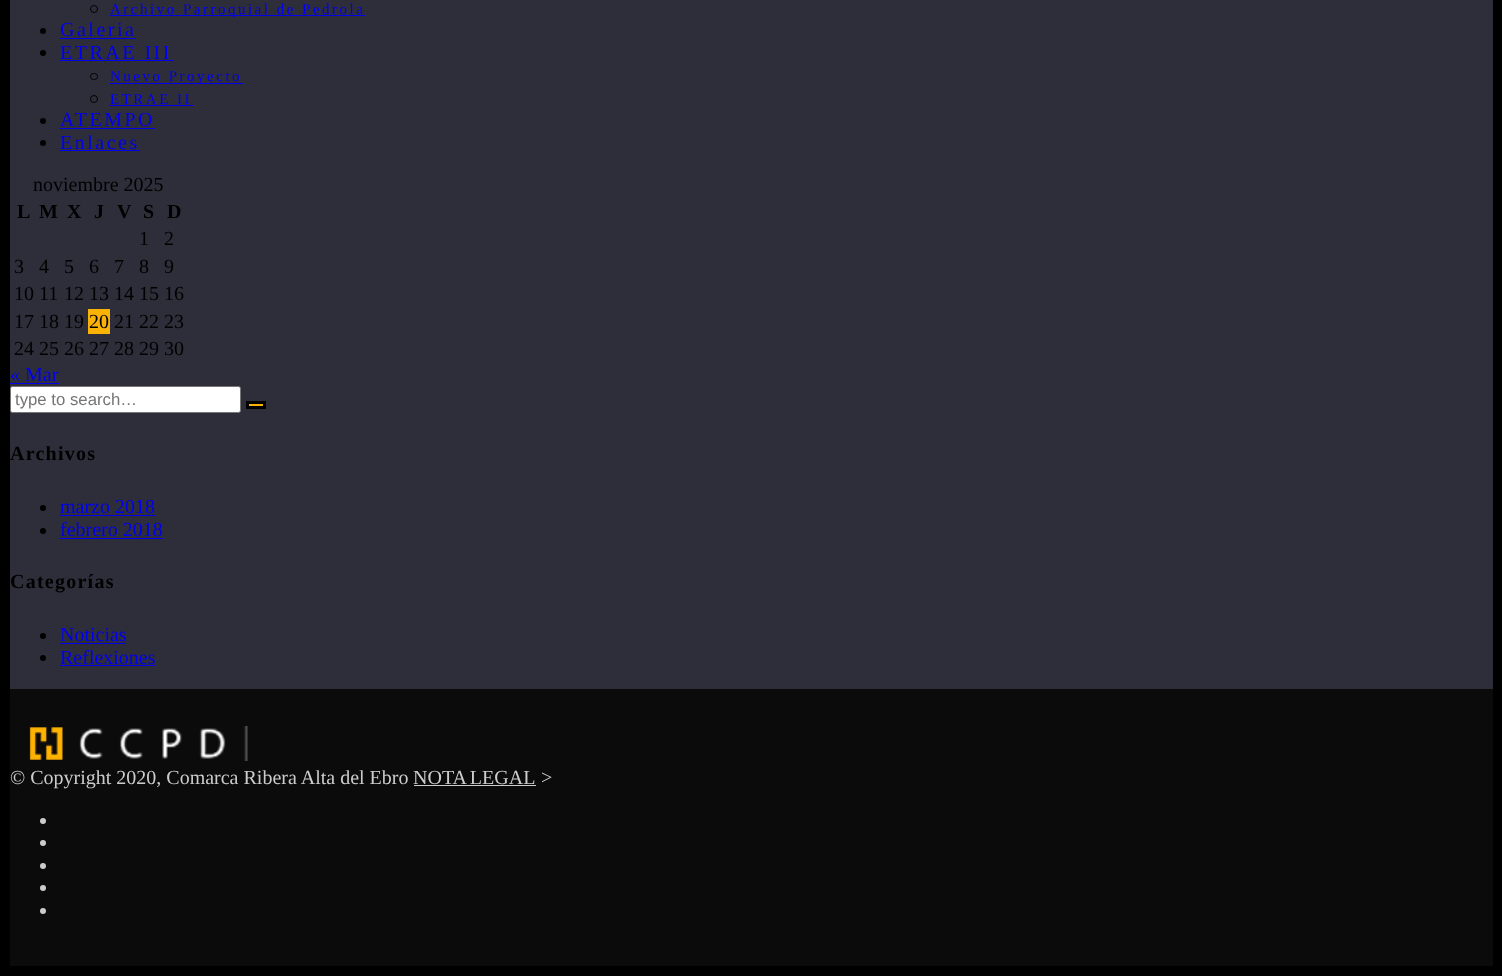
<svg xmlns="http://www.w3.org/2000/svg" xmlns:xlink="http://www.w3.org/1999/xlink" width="1502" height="976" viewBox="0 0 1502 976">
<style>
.cls-1{font:15px Liberation Serif;letter-spacing:2.5px;fill:#0000ee}
.cls-2{font:20px Liberation Serif;letter-spacing:2.5px;fill:#0000ee}
.cls-3{font:20px Liberation Serif;fill:#000000}
.cls-4{font:bold 20px Liberation Serif;fill:#000000}
.cls-5{font:20px Liberation Serif;fill:#0000ee}
.cls-6{font:16.75px Liberation Sans;fill:#757575}
.cls-7{font:bold 20px Liberation Serif;letter-spacing:1.25px;fill:#000000}
.cls-8{font:20px Liberation Serif;fill:#cccccc}
</style>
<rect width="100%" height="100%" fill="#000000"/>
<rect fill="#2e2e3a" x="10" y="0" width="1483" height="689"/>
<circle fill="none" stroke="#000000" cx="94" cy="9" r="3.5"/>
<rect fill="#0000ee" x="110" y="15" width="255" height="1"/>
<circle fill="#000000" cx="43" cy="31" r="3"/>
<rect fill="#0000ee" x="60" y="38" width="76" height="1"/>
<circle fill="#000000" cx="43" cy="53" r="3"/>
<rect fill="#0000ee" x="60" y="60" width="113" height="1"/>
<rect fill="none" stroke="#000000" x="90.5" y="73.5" width="7" height="6" rx="3"/>
<rect fill="#0000ee" x="110" y="83" width="133" height="1"/>
<circle fill="none" stroke="#000000" cx="94" cy="99" r="3.5"/>
<rect fill="#0000ee" x="110" y="105" width="83" height="1"/>
<circle fill="#000000" cx="43" cy="121" r="3"/>
<rect fill="#0000ee" x="60" y="128" width="95" height="1"/>
<circle fill="#000000" cx="43" cy="143" r="3"/>
<rect fill="#0000ee" x="60" y="150" width="80" height="1"/>
<rect fill="#fab207" x="88" y="309" width="22" height="25"/>
<rect fill="#0000ee" x="10" y="383" width="49" height="1"/>
<rect fill="#ffffff" stroke="#767676" x="10.5" y="386.5" width="230" height="26" rx="2"/>
<rect fill="#fab207" stroke="#000000" stroke-width="3" x="247.5" y="402.5" width="17" height="5"/>
<circle fill="#000000" cx="43" cy="508" r="3"/>
<rect fill="#0000ee" x="60" y="515" width="95" height="1"/>
<circle fill="#000000" cx="43" cy="531" r="3"/>
<rect fill="#0000ee" x="60" y="538" width="103" height="1"/>
<circle fill="#000000" cx="43" cy="636" r="3"/>
<rect fill="#0000ee" x="60" y="643" width="66" height="1"/>
<circle fill="#000000" cx="43" cy="658" r="3"/>
<rect fill="#0000ee" x="60" y="665" width="95" height="1"/>
<rect fill="#0b0b0b" x="10" y="689" width="1483" height="277"/>
<image xlink:href="image0.png" x="29" y="726" width="219" height="35"/>
<rect fill="#cccccc" x="414" y="785" width="122" height="1"/>
<circle fill="#cccccc" cx="43" cy="821" r="3"/>
<circle fill="#cccccc" cx="43" cy="843" r="3"/>
<circle fill="#cccccc" cx="43" cy="866" r="3"/>
<circle fill="#cccccc" cx="43" cy="888" r="3"/>
<circle fill="#cccccc" cx="43" cy="911" r="3"/>
<text class="cls-1" x="110" y="14">Archivo Parroquial de Pedrola</text>
<text class="cls-2"><tspan x="60" y="36">Galeria</tspan><tspan x="60" y="59">ETRAE III</tspan></text>
<text class="cls-1"><tspan x="110" y="81">Nuevo Proyecto</tspan><tspan x="110" y="104">ETRAE II</tspan></text>
<text class="cls-2"><tspan x="60" y="126">ATEMPO</tspan><tspan x="60" y="149">Enlaces</tspan></text>
<text class="cls-3" x="33" y="191">noviembre 2025</text>
<text class="cls-4" x="17" y="218">L</text>
<text class="cls-4" x="39" y="218">M</text>
<text class="cls-4" x="67" y="218">X</text>
<text class="cls-4" x="94" y="218">J</text>
<text class="cls-4" x="117" y="218">V</text>
<text class="cls-4" x="143" y="218">S</text>
<text class="cls-4" x="167" y="218">D</text>
<text class="cls-3" x="139" y="245">1</text>
<text class="cls-3" x="164" y="245">2</text>
<text class="cls-3" x="14" y="273">3</text>
<text class="cls-3" x="39" y="273">4</text>
<text class="cls-3" x="64" y="273">5</text>
<text class="cls-3" x="89" y="273">6</text>
<text class="cls-3" x="114" y="273">7</text>
<text class="cls-3" x="139" y="273">8</text>
<text class="cls-3" x="164" y="273">9</text>
<text class="cls-3" x="14" y="300">10 11</text>
<text class="cls-3" x="64" y="300">12 13 14 15 16</text>
<text class="cls-3"><tspan x="14" y="328">17 18 19 20 21 22 23</tspan><tspan x="14" y="355">24 25 26 27 28 29 30</tspan></text>
<text class="cls-5" x="10" y="381">« Mar</text>
<text class="cls-6" x="15" y="405">type to search…</text>
<text class="cls-7" x="10" y="460">Archivos</text>
<text class="cls-5"><tspan x="60" y="513">marzo 2018</tspan><tspan x="60" y="536">febrero 2018</tspan></text>
<text class="cls-7" x="10" y="588">Categorías</text>
<text class="cls-5"><tspan x="60" y="641">Noticias</tspan><tspan x="60" y="664">Reflexiones</tspan></text>
<text class="cls-8" x="10" y="784">© Copyright 2020, Comarca Ribera Alta del Ebro</text>
<text class="cls-8" x="413" y="784" word-spacing="-1">NOTA LEGAL</text>
<text class="cls-8" x="541" y="784">&gt;</text>
</svg>
